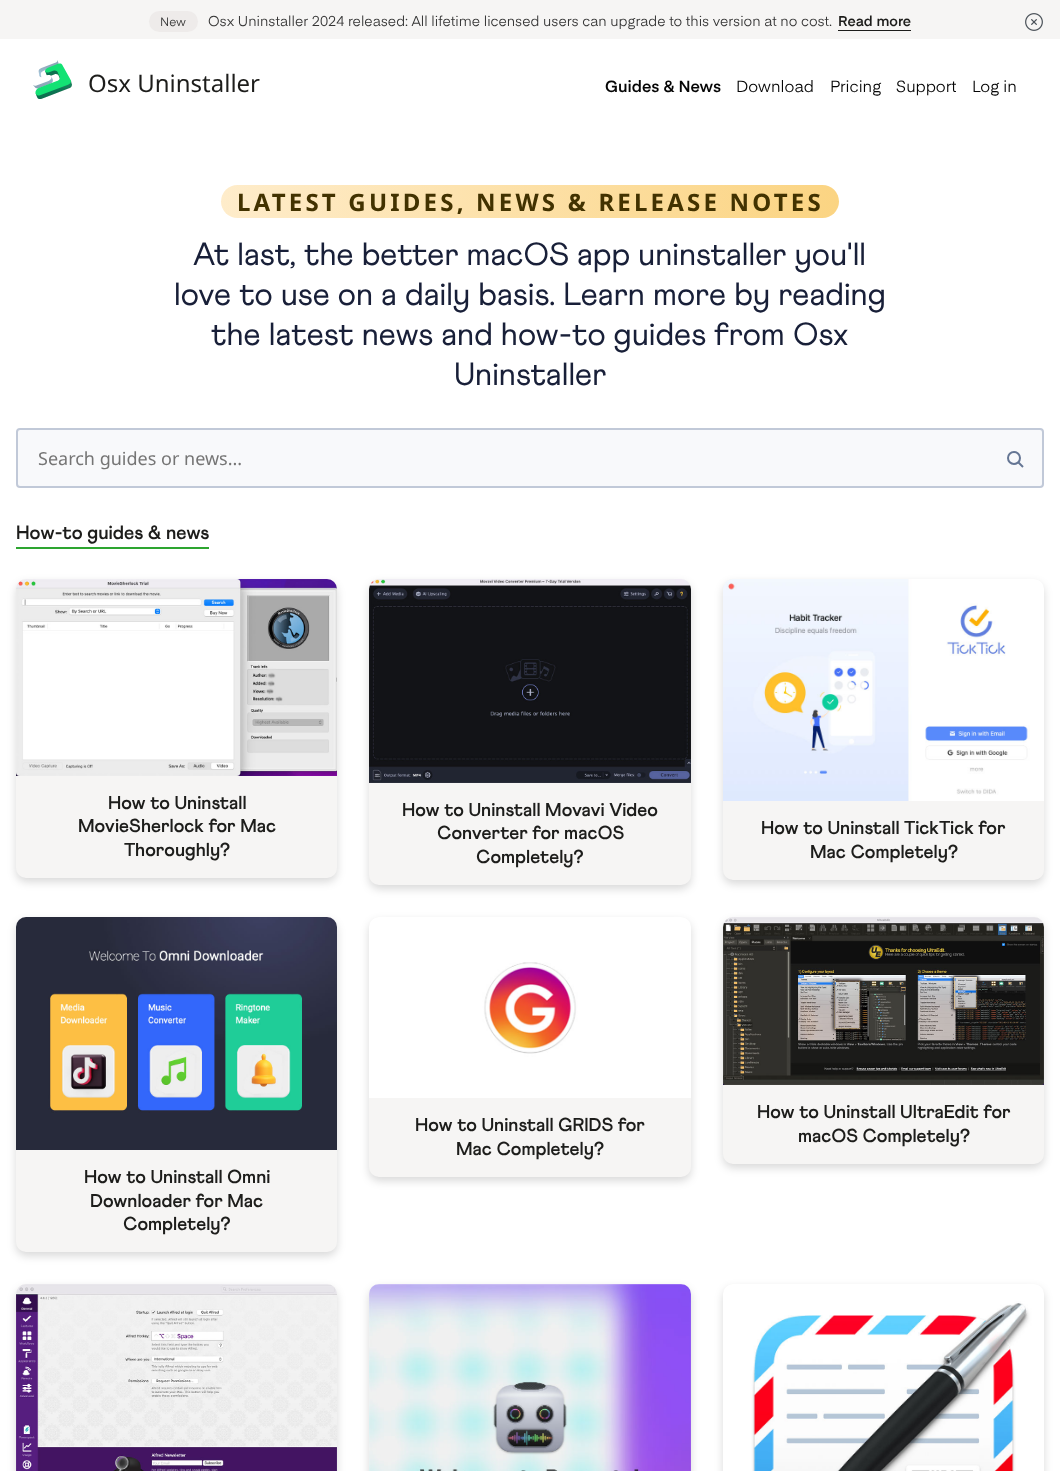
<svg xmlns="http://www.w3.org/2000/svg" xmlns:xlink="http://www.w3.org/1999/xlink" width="1060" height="1471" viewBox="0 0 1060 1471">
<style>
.cls-1{font:12px 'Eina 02';fill:#353535}
.cls-2{font:14px 'Eina 02';fill:#353535}
.cls-3{font:600 14px 'Eina 02';fill:#1d1d1b}
.cls-4{font:24px Noto Sans;fill:#1d1d1b}
.cls-5{font:600 16px 'Eina 02';fill:#050505}
.cls-6{font:16px 'Eina 02';fill:#050505}
.cls-7{font:bold 24px Noto Sans;letter-spacing:3.2px;fill:#423200}
.cls-8{font:32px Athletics;fill:#181f38}
.cls-9{font:18px Noto Sans;fill:#757575}
.cls-10{font:bold 19.25px Athletics;fill:#1d1d1b}
.cls-11{font:bold 18.75px Athletics;fill:#1d1d1b}
</style>
<defs>
<linearGradient id="g1" gradientUnits="userSpaceOnUse" x1="98" y1="171" x2="839" y2="223"><stop offset="0" stop-color="#fff1d9"/><stop offset="1" stop-color="#fbd482"/></linearGradient>
</defs>
<rect width="100%" height="100%" fill="#ffffff"/>
<rect fill="#f6f5f4" x="0" y="0" width="1060" height="39"/>
<rect fill="#eeebea" x="149" y="11" width="49" height="21" rx="10.5"/>
<rect fill="#1d1d1b" x="838" y="30" width="73" height="1"/>
<image xlink:href="image0.png" x="1025" y="13" width="18" height="18"/>
<image xlink:href="image1.png" x="33" y="60" width="39" height="39"/>
<rect fill="url(#g1)" x="221" y="185" width="618" height="33" rx="16.5"/>
<rect fill="#f8f9fb" stroke="#c1c9d8" stroke-width="2" x="17" y="429" width="1026" height="58" rx="3"/>
<circle fill="none" stroke="#657694" stroke-width="2" cx="1014" cy="458" r="6"/>
<path fill="none" stroke="#657694" stroke-width="2" d="M1023 467L1018.5 462.5"/>
<rect fill="#2da530" x="16" y="547" width="193" height="2"/>
<rect fill="#000000" fill-opacity="0.15" filter="blur(4px)" x="16" y="583" width="321" height="299" rx="10"/>
<rect fill="#f6f5f4" x="16" y="579" width="321" height="299" rx="10"/>
<image xlink:href="image2.png" x="16" y="579" width="321" height="197"/>
<rect fill="#000000" fill-opacity="0.15" filter="blur(4px)" x="369" y="583" width="322" height="306" rx="10"/>
<rect fill="#f6f5f4" x="369" y="579" width="322" height="306" rx="10"/>
<image xlink:href="image3.png" x="369" y="579" width="322" height="204"/>
<rect fill="#000000" fill-opacity="0.15" filter="blur(4px)" x="723" y="583" width="321" height="301" rx="10"/>
<rect fill="#f6f5f4" x="723" y="579" width="321" height="301" rx="10"/>
<image xlink:href="image4.png" x="723" y="579" width="321" height="222"/>
<rect fill="#000000" fill-opacity="0.15" filter="blur(4px)" x="369" y="921" width="322" height="260" rx="10"/>
<rect fill="#f6f5f4" x="369" y="917" width="322" height="260" rx="10"/>
<image xlink:href="image5.png" x="369" y="917" width="322" height="181"/>
<rect fill="#000000" fill-opacity="0.15" filter="blur(4px)" x="723" y="921" width="321" height="247" rx="10"/>
<rect fill="#f6f5f4" x="723" y="917" width="321" height="247" rx="10"/>
<image xlink:href="image6.png" x="723" y="917" width="321" height="168"/>
<rect fill="#000000" fill-opacity="0.15" filter="blur(4px)" x="16" y="921" width="321" height="335" rx="10"/>
<rect fill="#f6f5f4" x="16" y="917" width="321" height="335" rx="10"/>
<image xlink:href="image7.png" x="16" y="917" width="321" height="233"/>
<rect fill="#000000" fill-opacity="0.15" filter="blur(4px)" x="16" y="1288" width="321" height="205" rx="10"/>
<rect fill="#f6f5f4" x="16" y="1284" width="321" height="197" rx="10"/>
<image xlink:href="image8.png" x="16" y="1284" width="321" height="187"/>
<rect fill="#000000" fill-opacity="0.15" filter="blur(4px)" x="369" y="1288" width="322" height="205" rx="10"/>
<rect fill="#f6f5f4" x="369" y="1284" width="322" height="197" rx="10"/>
<image xlink:href="image9.png" x="369" y="1284" width="322" height="187"/>
<rect fill="#000000" fill-opacity="0.15" filter="blur(4px)" x="723" y="1288" width="321" height="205" rx="10"/>
<rect fill="#f6f5f4" x="723" y="1284" width="321" height="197" rx="10"/>
<image xlink:href="image10.png" x="723" y="1284" width="321" height="187"/>
<text class="cls-1" x="160" y="26">New</text>
<text class="cls-2" x="208" y="26">Osx Uninstaller 2024 released: All lifetime licensed users can upgrade to this version at no cost.</text>
<text class="cls-3" x="838" y="26">Read more</text>
<text class="cls-4" x="88" y="92">Osx Uninstaller</text>
<text class="cls-5" x="605" y="92">Guides &amp; News</text>
<text class="cls-6" x="736" y="92">Download</text>
<text class="cls-6" x="830" y="92">Pricing</text>
<text class="cls-6" x="896" y="92">Support</text>
<text class="cls-6" x="972" y="92">Log in</text>
<text class="cls-7" x="237" y="211">LATEST GUIDES, NEWS &amp; RELEASE NOTES</text>
<text class="cls-8" x="193" y="265">At last, the better macOS app uninstaller you'll</text>
<text class="cls-8" x="174" y="305">love to use on a daily basis. Learn more by reading</text>
<text class="cls-8" x="211" y="345">the latest news and how-to guides from Osx</text>
<text class="cls-8" x="454" y="385">Uninstaller</text>
<text class="cls-9" x="38" y="465">Search guides or news...</text>
<text class="cls-10" x="16" y="539">How-to guides &amp; news</text>
<text class="cls-11" x="108" y="809">How to Uninstall</text>
<text class="cls-11" x="78" y="832">MovieSherlock for Mac</text>
<text class="cls-11" x="124" y="856">Thoroughly?</text>
<text class="cls-11" x="402" y="816">How to Uninstall Movavi Video</text>
<text class="cls-11" x="437" y="839">Converter for macOS</text>
<text class="cls-11" x="476" y="863">Completely?</text>
<text class="cls-11" x="761" y="834">How to Uninstall TickTick for</text>
<text class="cls-11" x="810" y="858">Mac Completely?</text>
<text class="cls-11" x="415" y="1131">How to Uninstall GRIDS for</text>
<text class="cls-11" x="456" y="1155">Mac Completely?</text>
<text class="cls-11" x="757" y="1118">How to Uninstall UltraEdit for</text>
<text class="cls-11" x="798" y="1142">macOS Completely?</text>
<text class="cls-11" x="84" y="1183">How to Uninstall Omni</text>
<text class="cls-11" x="90" y="1207">Downloader for Mac</text>
<text class="cls-11" x="123" y="1230">Completely?</text>
</svg>
